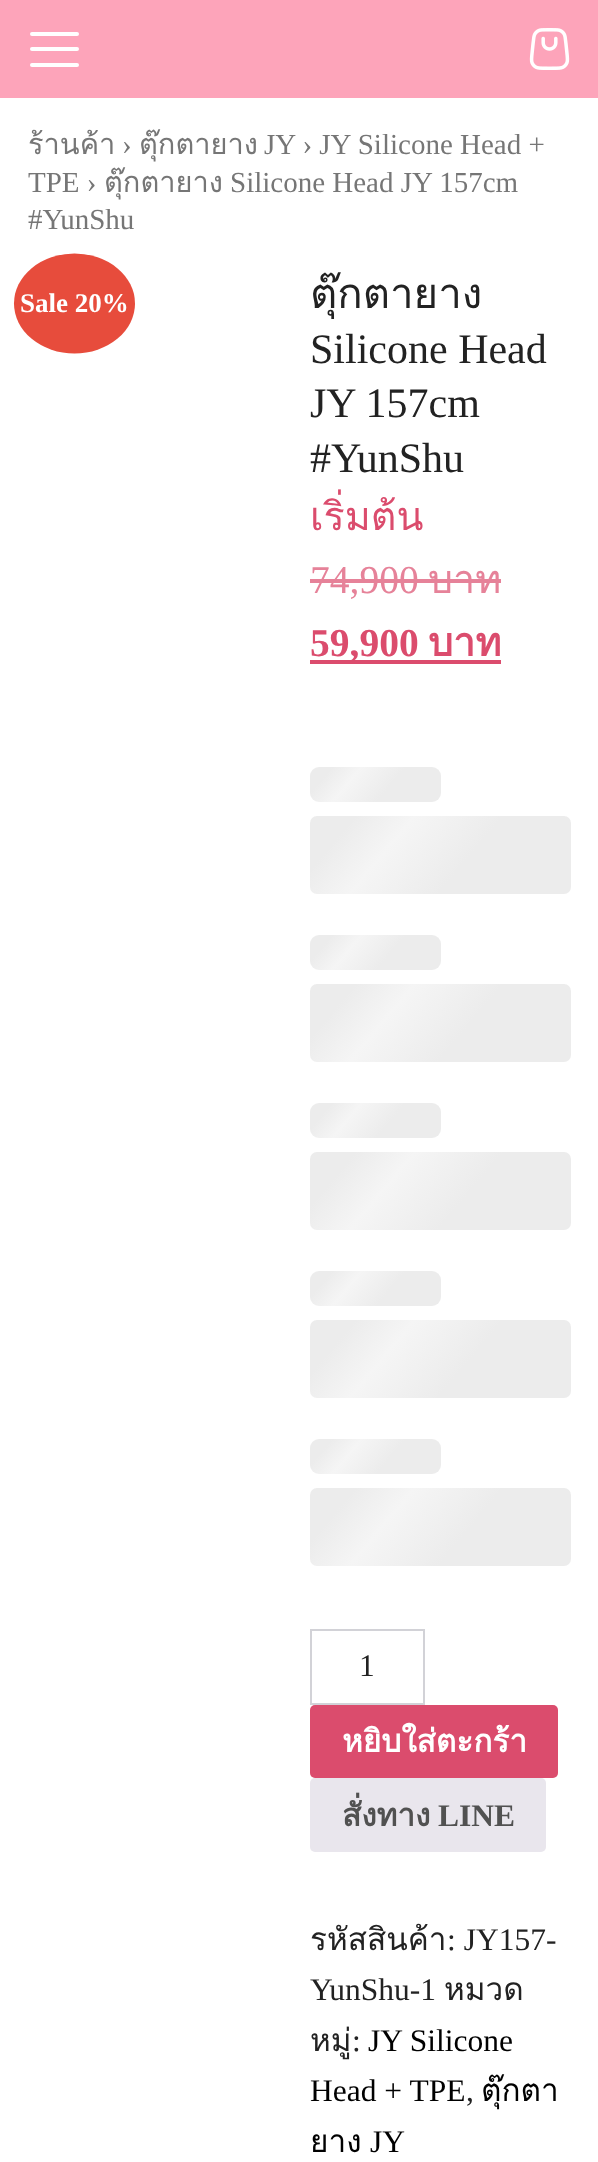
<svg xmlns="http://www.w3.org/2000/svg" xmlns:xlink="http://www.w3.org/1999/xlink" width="598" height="2162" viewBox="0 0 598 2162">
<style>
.cls-1{font:29px Loma;fill:#767676}
.cls-2{font:29px Liberation Serif;fill:#767676}
.cls-3{font:bold 27px Liberation Serif;fill:#ffffff}
.cls-4{font:42px Loma;fill:#222222}
.cls-5{font:42px Liberation Serif;fill:#222222}
.cls-6{font:39.5px Loma;fill:#db4c6d}
.cls-7{font:39.5px Liberation Serif;fill:#e68299}
.cls-8{font:39.5px Loma;fill:#e68299}
.cls-9{font:bold 39.5px Liberation Serif;fill:#db4c6d}
.cls-10{font:bold 39.5px Loma;fill:#db4c6d}
.cls-11{font:31.5px Liberation Serif;fill:#222222}
.cls-12{font:bold 31.5px Loma;fill:#ffffff}
.cls-13{font:bold 31.5px Loma;fill:#515151}
.cls-14{font:bold 31.5px Liberation Serif;fill:#515151}
.cls-15{font:31.5px Loma;fill:#222222}
.cls-16{font:31.5px Liberation Serif;fill:#000000}
.cls-17{font:31.5px Loma;fill:#000000}
</style>
<defs>
<linearGradient id="g1" gradientUnits="userSpaceOnUse" x1="355" y1="712" x2="527" y2="856"><stop offset="0.08" stop-color="#ececec"/><stop offset="0.18" stop-color="#f5f5f5"/><stop offset="0.33" stop-color="#ececec"/></linearGradient>
<linearGradient id="g2" gradientUnits="userSpaceOnUse" x1="398" y1="710" x2="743" y2="1000"><stop offset="0.08" stop-color="#ececec"/><stop offset="0.18" stop-color="#f5f5f5"/><stop offset="0.33" stop-color="#ececec"/></linearGradient>
<linearGradient id="g3" gradientUnits="userSpaceOnUse" x1="355" y1="880" x2="527" y2="1024"><stop offset="0.08" stop-color="#ececec"/><stop offset="0.18" stop-color="#f5f5f5"/><stop offset="0.33" stop-color="#ececec"/></linearGradient>
<linearGradient id="g4" gradientUnits="userSpaceOnUse" x1="398" y1="878" x2="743" y2="1168"><stop offset="0.08" stop-color="#ececec"/><stop offset="0.18" stop-color="#f5f5f5"/><stop offset="0.33" stop-color="#ececec"/></linearGradient>
<linearGradient id="g5" gradientUnits="userSpaceOnUse" x1="355" y1="1048" x2="527" y2="1192"><stop offset="0.08" stop-color="#ececec"/><stop offset="0.18" stop-color="#f5f5f5"/><stop offset="0.33" stop-color="#ececec"/></linearGradient>
<linearGradient id="g6" gradientUnits="userSpaceOnUse" x1="398" y1="1046" x2="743" y2="1336"><stop offset="0.08" stop-color="#ececec"/><stop offset="0.18" stop-color="#f5f5f5"/><stop offset="0.33" stop-color="#ececec"/></linearGradient>
<linearGradient id="g7" gradientUnits="userSpaceOnUse" x1="355" y1="1216" x2="527" y2="1360"><stop offset="0.08" stop-color="#ececec"/><stop offset="0.18" stop-color="#f5f5f5"/><stop offset="0.33" stop-color="#ececec"/></linearGradient>
<linearGradient id="g8" gradientUnits="userSpaceOnUse" x1="398" y1="1214" x2="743" y2="1504"><stop offset="0.08" stop-color="#ececec"/><stop offset="0.18" stop-color="#f5f5f5"/><stop offset="0.33" stop-color="#ececec"/></linearGradient>
<linearGradient id="g9" gradientUnits="userSpaceOnUse" x1="355" y1="1384" x2="527" y2="1528"><stop offset="0.08" stop-color="#ececec"/><stop offset="0.18" stop-color="#f5f5f5"/><stop offset="0.33" stop-color="#ececec"/></linearGradient>
<linearGradient id="g10" gradientUnits="userSpaceOnUse" x1="398" y1="1382" x2="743" y2="1672"><stop offset="0.08" stop-color="#ececec"/><stop offset="0.18" stop-color="#f5f5f5"/><stop offset="0.33" stop-color="#ececec"/></linearGradient>
</defs>
<rect width="100%" height="100%" fill="#ffffff"/>
<rect fill="#fda4ba" x="0" y="0" width="598" height="98"/>
<rect fill="#ffffff" x="30" y="47" width="49" height="4" rx="2"/>
<rect fill="#ffffff" x="30" y="32" width="49" height="4" rx="2"/>
<rect fill="#ffffff" x="30" y="63" width="49" height="4" rx="2"/>
<image xlink:href="image0.png" x="529" y="28" width="41" height="42"/>
<ellipse fill="#e74c3c" cx="74.5" cy="303.5" rx="60.5" ry="50"/>
<rect fill="#e68299" x="310" y="579" width="119" height="4"/>
<rect fill="#e68299" x="429" y="579" width="72" height="4"/>
<rect fill="#db4c6d" x="310" y="660" width="191" height="4"/>
<rect fill="url(#g1)" x="310" y="767" width="131" height="35" rx="9"/>
<rect fill="url(#g2)" x="310" y="816" width="261" height="78" rx="7"/>
<rect fill="url(#g3)" x="310" y="935" width="131" height="35" rx="9"/>
<rect fill="url(#g4)" x="310" y="984" width="261" height="78" rx="7"/>
<rect fill="url(#g5)" x="310" y="1103" width="131" height="35" rx="9"/>
<rect fill="url(#g6)" x="310" y="1152" width="261" height="78" rx="7"/>
<rect fill="url(#g7)" x="310" y="1271" width="131" height="35" rx="9"/>
<rect fill="url(#g8)" x="310" y="1320" width="261" height="78" rx="7"/>
<rect fill="url(#g9)" x="310" y="1439" width="131" height="35" rx="9"/>
<rect fill="url(#g10)" x="310" y="1488" width="261" height="78" rx="7"/>
<rect fill="none" stroke="#d2d2d7" stroke-width="2" x="311" y="1630" width="113" height="74"/>
<rect fill="#db4c6d" x="310" y="1705" width="248" height="73" rx="5"/>
<rect fill="#e9e6ed" x="310" y="1778" width="236" height="74" rx="5"/>
<text class="cls-1" x="28" y="154">ร้านค้า</text>
<text class="cls-2" x="264" y="154">JY › JY Silicone Head +</text>
<text class="cls-2" x="122" y="154">›</text>
<text class="cls-1" x="139" y="154">ตุ๊กตายาง</text>
<text class="cls-2" x="28" y="192">TPE ›</text>
<text class="cls-1" x="104" y="192">ตุ๊กตายาง</text>
<text class="cls-2" x="230" y="192">Silicone Head JY 157cm</text>
<text class="cls-2" x="28" y="229">#YunShu</text>
<text class="cls-3" x="20" y="312">Sale 20%</text>
<text class="cls-4" x="310" y="308">ตุ๊กตายาง</text>
<text class="cls-5"><tspan x="310" y="363">Silicone Head</tspan><tspan x="310" y="417">JY 157cm</tspan><tspan x="310" y="472">#YunShu</tspan></text>
<text class="cls-6" x="310" y="530">เริ่มต้น</text>
<text class="cls-7" x="310" y="593">74,900</text>
<text class="cls-8" x="428" y="593">บาท</text>
<text class="cls-9" x="310" y="656">59,900</text>
<text class="cls-10" x="428" y="656">บาท</text>
<text class="cls-11" x="359" y="1676">1</text>
<text class="cls-12" x="342" y="1752">หยิบใส่ตะกร้า</text>
<text class="cls-13" x="342" y="1826">สั่งทาง</text>
<text class="cls-14" x="438" y="1826">LINE</text>
<text class="cls-15" x="310" y="1950">รหัสสินค้า</text>
<text class="cls-11" x="447" y="1950">: JY157-</text>
<text class="cls-11" x="310" y="2000">YunShu-1</text>
<text class="cls-15" x="444" y="2000">หมวด</text>
<text class="cls-15" x="310" y="2051">หมู่</text>
<text class="cls-11" x="352" y="2051">:</text>
<text class="cls-16" x="368" y="2051">JY Silicone</text>
<text class="cls-16" x="310" y="2101">Head + TPE</text>
<text class="cls-11" x="466" y="2101">,</text>
<text class="cls-17" x="481" y="2101">ตุ๊กตา</text>
<text class="cls-17" x="310" y="2152">ยาง</text>
<text class="cls-16" x="370" y="2152">JY</text>
</svg>
